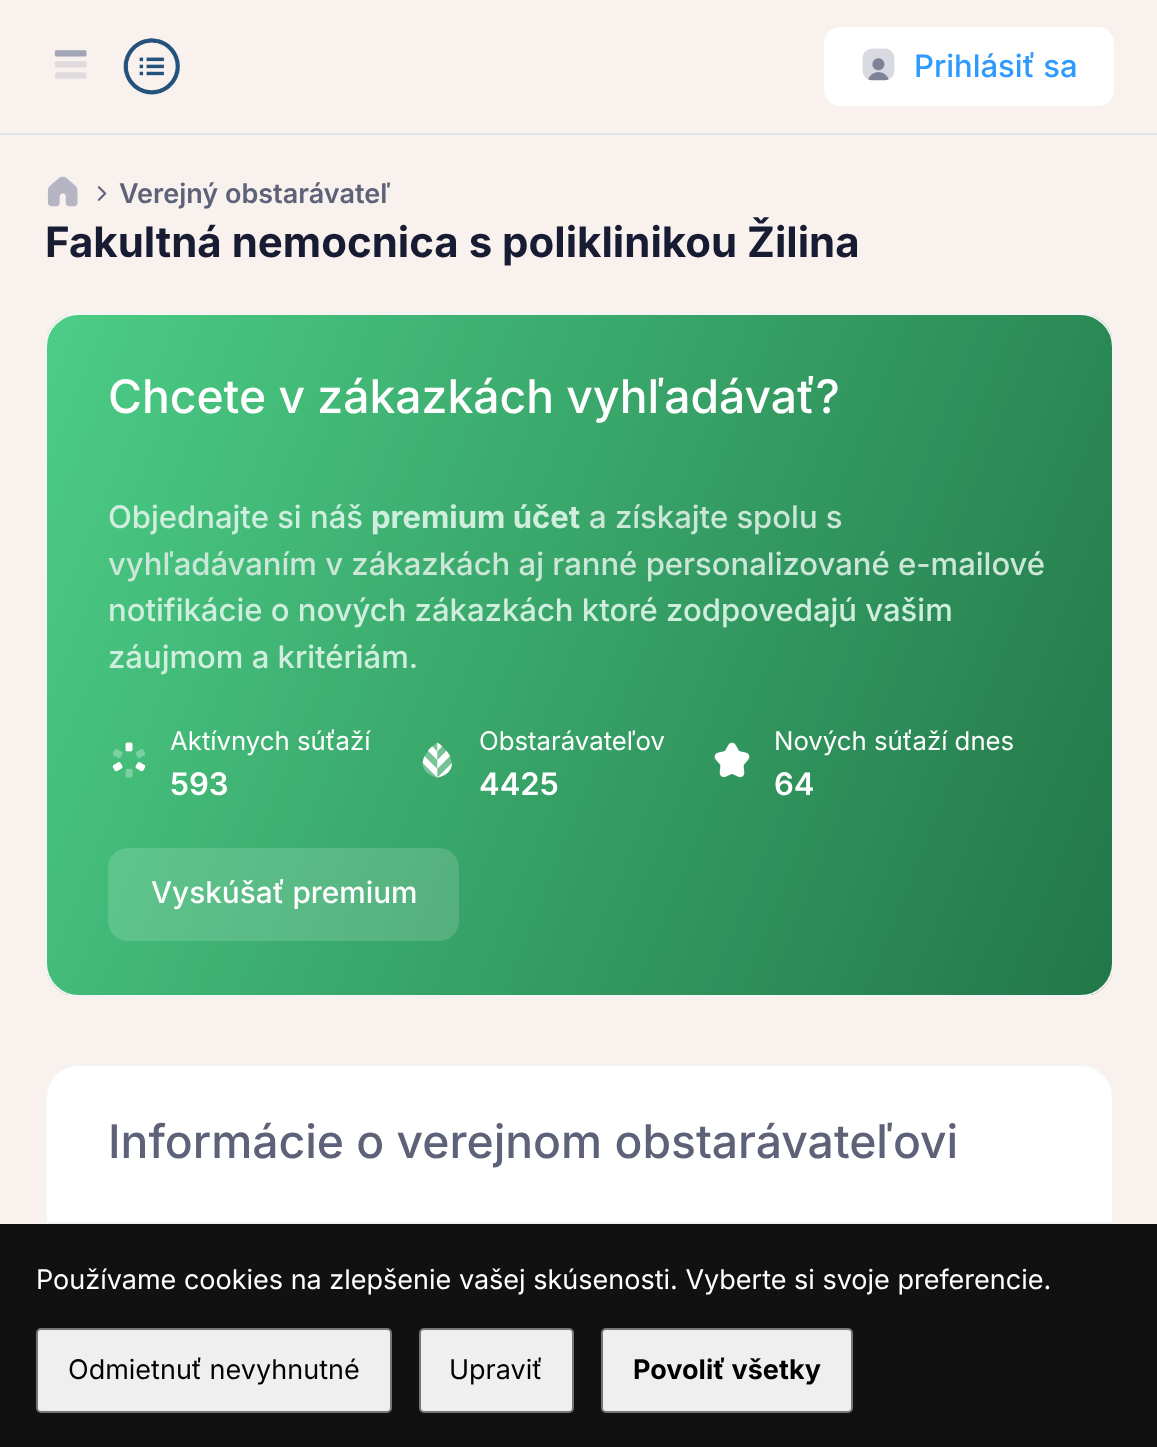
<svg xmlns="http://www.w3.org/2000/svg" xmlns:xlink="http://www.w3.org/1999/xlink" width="1157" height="1447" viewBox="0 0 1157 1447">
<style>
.cls-1{font:500 31.05px Inter;fill:#2c9aff}
.cls-2{font:600 27px Inter;fill:#5e6278}
.cls-3{font:bold 42px Inter;fill:#181c32}
.cls-4{font:500 46.25px Inter;fill:#ffffff}
.cls-5{font:500 31.05px Inter;fill:#d0eede}
.cls-6{font:bold 31.05px Inter;fill:#d0eede}
.cls-7{font:500 31.05px Inter;fill:#cce6d8}
.cls-8{font:25.75px Inter;fill:#ffffff}
.cls-9{font:600 31.05px Inter;fill:#ffffff}
.cls-10{font:500 29.75px Inter;fill:#ffffff}
.cls-11{font:500 46.25px Inter;fill:#5e6278}
.cls-12{font:27px Inter;fill:#ffffff}
.cls-13{font:27px Inter;fill:#000000}
.cls-14{font:bold 27px Inter;fill:#000000}
</style>
<defs>
<clipPath id="clip1"><rect x="45" y="313" width="1069" height="684" rx="34"/></clipPath>
<linearGradient id="g1" gradientUnits="userSpaceOnUse" x1="4.2" y1="421" x2="1155" y2="889"><stop offset="0" stop-color="#4ccd86"/><stop offset="1" stop-color="#227748"/></linearGradient>
</defs>
<rect width="100%" height="100%" fill="#f8f1ed"/>
<rect fill="#e1e3ea" x="0" y="133" width="1157" height="2"/>
<image xlink:href="image0.png" x="54" y="50" width="33" height="7"/>
<image xlink:href="image1.png" x="55" y="61" width="32" height="18"/>
<image xlink:href="image2.png" x="123" y="38" width="57" height="57"/>
<rect fill="#ffffff" x="824" y="27" width="290" height="79" rx="16"/>
<image xlink:href="image4.png" x="872" y="58" width="13" height="13"/>
<image xlink:href="image5.png" x="868" y="72" width="21" height="9"/>
<image xlink:href="image3.png" x="862" y="48" width="33" height="33"/>
<image xlink:href="image6.png" x="47" y="176" width="31" height="31"/>
<image xlink:href="image7.png" x="97" y="186" width="10" height="15"/>
<g clip-path="url(#clip1)">
<rect fill="url(#g1)" x="47" y="315" width="1065" height="680"/>
</g>
<rect fill="none" stroke="#f4f4f4" stroke-width="2" x="46" y="314" width="1067" height="682" rx="33"/>
<image xlink:href="image8.png" x="112" y="742" width="34" height="30"/>
<image xlink:href="image9.png" x="112" y="749" width="34" height="29"/>
<image xlink:href="image10.png" x="422" y="742" width="30" height="36"/>
<path fill="#ffffff" fill-opacity="0.3" d="M437.5 742.5C428 748.5 415.5 764 428 773.5C430 775 435 777.5 437.5 777.5C439.5 777.5 444.5 775 446.5 773.5C459 764 446.5 748.5 437.5 742.5Z"/>
<image xlink:href="image11.png" x="714" y="742" width="36" height="36"/>
<rect fill="#ffffff" fill-opacity="0.15" x="108" y="848" width="351" height="93" rx="20"/>
<rect fill="#ffffff" stroke="#f4f4f4" stroke-width="2" x="46" y="1065" width="1067" height="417" rx="33"/>
<rect fill="#f4f4f4" x="47" y="1222" width="1065" height="2"/>
<rect fill="#111111" x="0" y="1224" width="1157" height="223"/>
<rect fill="#efefef" stroke="#767676" stroke-width="2" x="37" y="1329" width="354" height="83" rx="4"/>
<rect fill="#efefef" stroke="#767676" stroke-width="2" x="420" y="1329" width="153" height="83" rx="4"/>
<rect fill="#efefef" stroke="#767676" stroke-width="2" x="602" y="1329" width="250" height="83" rx="4"/>
<text class="cls-1" x="914" y="77">Prihlásiť sa</text>
<text class="cls-2" x="119" y="203">Verejný obstarávateľ</text>
<text class="cls-3" x="45" y="257">Fakultná nemocnica s poliklinikou Žilina</text>
<text class="cls-4" x="108" y="413">Chcete v zákazkách vyhľadávať?</text>
<text class="cls-5" x="108" y="528">Objednajte si náš</text>
<text class="cls-6" x="371" y="528">premium účet</text>
<text class="cls-7" x="589" y="528">a získajte spolu s</text>
<text class="cls-7" x="108" y="575">vyhľadávaním v zákazkách aj ranné personalizované e-mailové</text>
<text class="cls-5"><tspan x="108" y="621">notifikácie o nových zákazkách ktoré zodpovedajú vašim</tspan><tspan x="108" y="668">záujmom a kritériám.</tspan></text>
<text class="cls-8" x="170" y="750">Aktívnych súťaží</text>
<text class="cls-9" x="170" y="795">593</text>
<text class="cls-8" x="479" y="750">Obstarávateľov</text>
<text class="cls-9" x="479" y="795">4425</text>
<text class="cls-8" x="774" y="750">Nových súťaží dnes</text>
<text class="cls-9" x="774" y="795">64</text>
<text class="cls-10" x="151" y="903">Vyskúšať premium</text>
<text class="cls-11" x="108" y="1158">Informácie o verejnom obstarávateľovi</text>
<text class="cls-12" x="36" y="1289">Používame cookies na zlepšenie vašej skúsenosti. Vyberte si svoje preferencie.</text>
<text class="cls-13" x="68" y="1379">Odmietnuť nevyhnutné</text>
<text class="cls-13" x="449" y="1379">Upraviť</text>
<text class="cls-14" x="633" y="1379">Povoliť všetky</text>
</svg>
